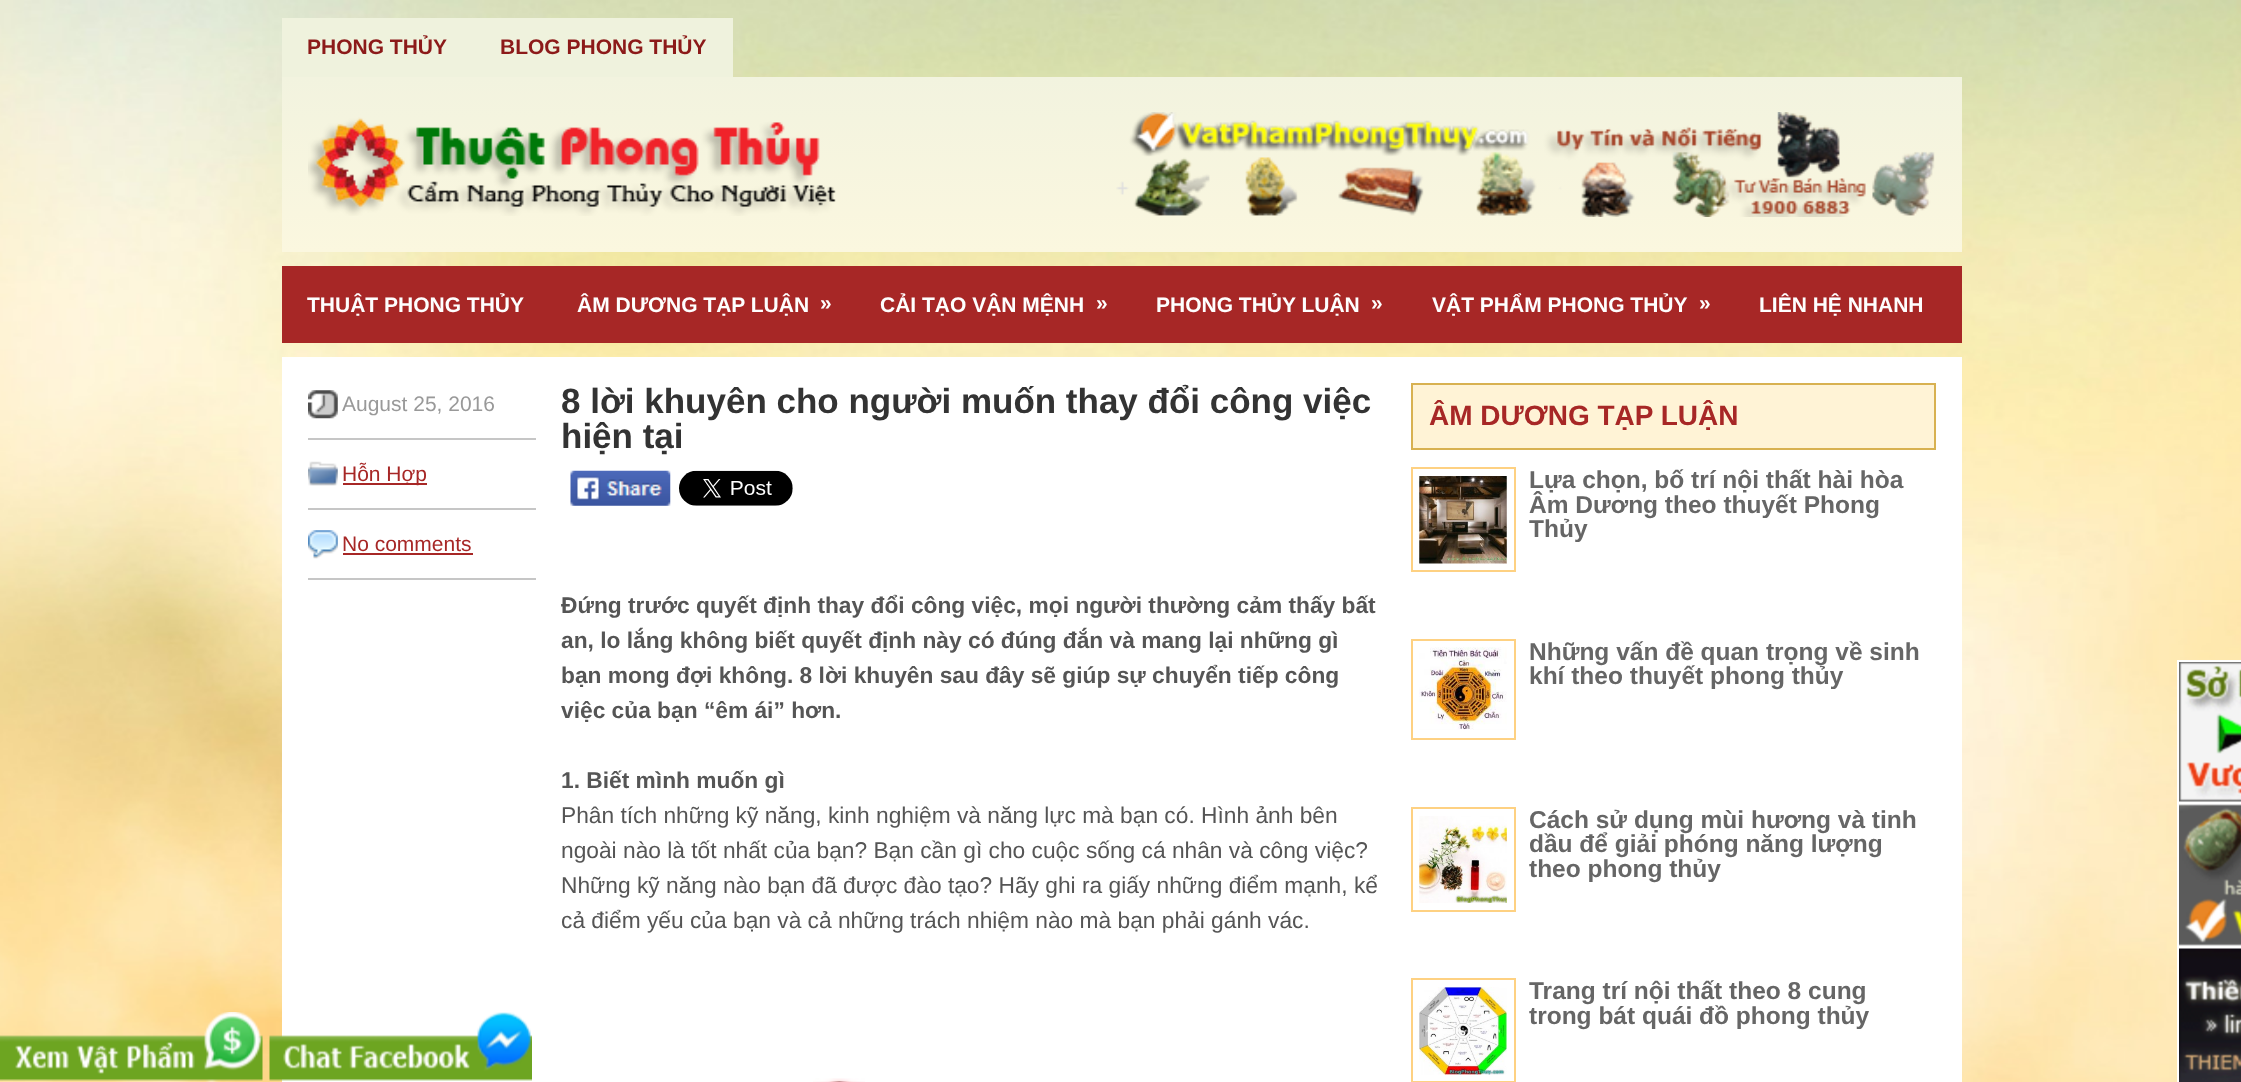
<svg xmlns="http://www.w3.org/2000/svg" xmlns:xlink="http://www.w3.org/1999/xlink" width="2241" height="1082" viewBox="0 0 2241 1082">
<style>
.cls-1{font:bold 21px Liberation Sans;fill:#8c1a19}
.cls-2{font:bold 21px Liberation Sans;fill:#fefefe}
.cls-3{font:21px Liberation Sans;fill:#999999}
.cls-4{font:21px Liberation Sans;fill:#a72726}
.cls-5{font:bold 35px Liberation Sans;fill:#333333}
.cls-6{font:bold 22.75px Liberation Sans;fill:#555555}
.cls-7{font:22.75px Liberation Sans;fill:#555555}
.cls-8{font:bold 28px Liberation Sans;fill:#a72726}
.cls-9{font:bold 24.5px Liberation Sans;fill:#666666}
</style>
<defs>
<linearGradient id="g1" gradientUnits="userSpaceOnUse" x1="1122" y1="77" x2="1122" y2="252"><stop offset="0" stop-color="#f2f3df"/><stop offset="1" stop-color="#fbf7df"/></linearGradient>
</defs>
<rect width="100%" height="100%" fill="#ffffff"/>
<image xlink:href="image0.png" x="0" y="0" width="2241" height="1082"/>
<image xlink:href="image1.png" x="0" y="1012" width="263" height="69"/>
<rect fill="#ffffff" x="282" y="357" width="1680" height="725"/>
<image xlink:href="image2.png" x="269" y="1012" width="263" height="69"/>
<rect fill="#eff2dd" x="282" y="18" width="451" height="59"/>
<rect fill="url(#g1)" x="282" y="77" width="1680" height="175"/>
<image xlink:href="image3.png" x="308" y="117" width="528" height="99"/>
<image xlink:href="image4.png" x="1116" y="112" width="819" height="105"/>
<rect fill="#a72726" x="282" y="266" width="1680" height="77"/>
<image xlink:href="image5.png" x="308" y="390" width="30" height="29"/>
<rect fill="#c6c6c6" x="308" y="438" width="228" height="2"/>
<image xlink:href="image6.png" x="308" y="461" width="30" height="25"/>
<rect fill="#c6c6c6" x="308" y="508" width="228" height="2"/>
<rect fill="#a72726" x="343" y="483" width="84" height="2"/>
<image xlink:href="image7.png" x="308" y="530" width="30" height="29"/>
<rect fill="#c6c6c6" x="308" y="578" width="228" height="2"/>
<rect fill="#a72726" x="343" y="553" width="130" height="2"/>
<image xlink:href="image8.png" x="570" y="470" width="101" height="36"/>
<image xlink:href="image9.png" x="679" y="470" width="114" height="36"/>
<image xlink:href="image10.png" x="813" y="1078" width="52" height="4"/>
<rect fill="#fff3d6" stroke="#d8b151" stroke-width="2" x="1412" y="384" width="523" height="65"/>
<rect fill="none" stroke="#fed182" stroke-width="2" x="1412" y="468" width="103" height="103"/>
<image xlink:href="image11.png" x="1419" y="476" width="88" height="88"/>
<rect fill="none" stroke="#fed182" stroke-width="2" x="1412" y="640" width="103" height="99"/>
<image xlink:href="image12.png" x="1419" y="647" width="88" height="83"/>
<rect fill="none" stroke="#fed182" stroke-width="2" x="1412" y="808" width="103" height="103"/>
<image xlink:href="image13.png" x="1419" y="816" width="88" height="87"/>
<rect fill="none" stroke="#fed182" stroke-width="2" x="1412" y="979" width="103" height="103"/>
<image xlink:href="image14.png" x="1419" y="987" width="88" height="88"/>
<rect fill="#ffffff" x="2177" y="660" width="64" height="422"/>
<image xlink:href="image15.png" x="2179" y="662" width="62" height="140"/>
<image xlink:href="image16.png" x="2179" y="804" width="62" height="142"/>
<image xlink:href="image17.png" x="2179" y="948" width="62" height="134"/>
<text class="cls-1" x="307" y="54">PHONG THỦY</text>
<text class="cls-1" x="500" y="54">BLOG PHONG THỦY</text>
<text class="cls-2" x="307" y="312">THUẬT PHONG THỦY</text>
<text class="cls-2" x="577" y="312">ÂM DƯƠNG TẠP LUẬN</text>
<text class="cls-2" x="820" y="310">»</text>
<text class="cls-2" x="880" y="312">CẢI TẠO VẬN MỆNH</text>
<text class="cls-2" x="1096" y="310">»</text>
<text class="cls-2" x="1156" y="312">PHONG THỦY LUẬN</text>
<text class="cls-2" x="1371" y="310">»</text>
<text class="cls-2" x="1432" y="312">VẬT PHẨM PHONG THỦY</text>
<text class="cls-2" x="1699" y="310">»</text>
<text class="cls-2" x="1759" y="312">LIÊN HỆ NHANH</text>
<text class="cls-3" x="342" y="411">August 25, 2016</text>
<text class="cls-4" x="342" y="481">Hỗn Hợp</text>
<text class="cls-4" x="342" y="551">No comments</text>
<text class="cls-5"><tspan x="561" y="413">8 lời khuyên cho người muốn thay đổi công việc</tspan><tspan x="561" y="448">hiện tại</tspan></text>
<text class="cls-6"><tspan x="561" y="613">Đứng trước quyết định thay đổi công việc, mọi người thường cảm thấy bất</tspan><tspan x="561" y="648">an, lo lắng không biết quyết định này có đúng đắn và mang lại những gì</tspan><tspan x="561" y="683">bạn mong đợi không. 8 lời khuyên sau đây sẽ giúp sự chuyển tiếp công</tspan><tspan x="561" y="718">việc của bạn “êm ái” hơn.</tspan></text>
<text class="cls-6" x="561" y="788">1. Biết mình muốn gì</text>
<text class="cls-7"><tspan x="561" y="823">Phân tích những kỹ năng, kinh nghiệm và năng lực mà bạn có. Hình ảnh bên</tspan><tspan x="561" y="858">ngoài nào là tốt nhất của bạn? Bạn cần gì cho cuộc sống cá nhân và công việc?</tspan><tspan x="561" y="893">Những kỹ năng nào bạn đã được đào tạo? Hãy ghi ra giấy những điểm mạnh, kể</tspan><tspan x="561" y="928">cả điểm yếu của bạn và cả những trách nhiệm nào mà bạn phải gánh vác.</tspan></text>
<text class="cls-8" x="1429" y="425">ÂM DƯƠNG TẠP LUẬN</text>
<text class="cls-9"><tspan x="1529" y="488">Lựa chọn, bố trí nội thất hài hòa</tspan><tspan x="1529" y="513">Âm Dương theo thuyết Phong</tspan><tspan x="1529" y="537">Thủy</tspan></text>
<text class="cls-9"><tspan x="1529" y="660">Những vấn đề quan trọng về sinh</tspan><tspan x="1529" y="684">khí theo thuyết phong thủy</tspan></text>
<text class="cls-9"><tspan x="1529" y="828">Cách sử dụng mùi hương và tinh</tspan><tspan x="1529" y="852">dầu để giải phóng năng lượng</tspan><tspan x="1529" y="877">theo phong thủy</tspan></text>
<text class="cls-9"><tspan x="1529" y="999">Trang trí nội thất theo 8 cung</tspan><tspan x="1529" y="1024">trong bát quái đồ phong thủy</tspan></text>
</svg>
